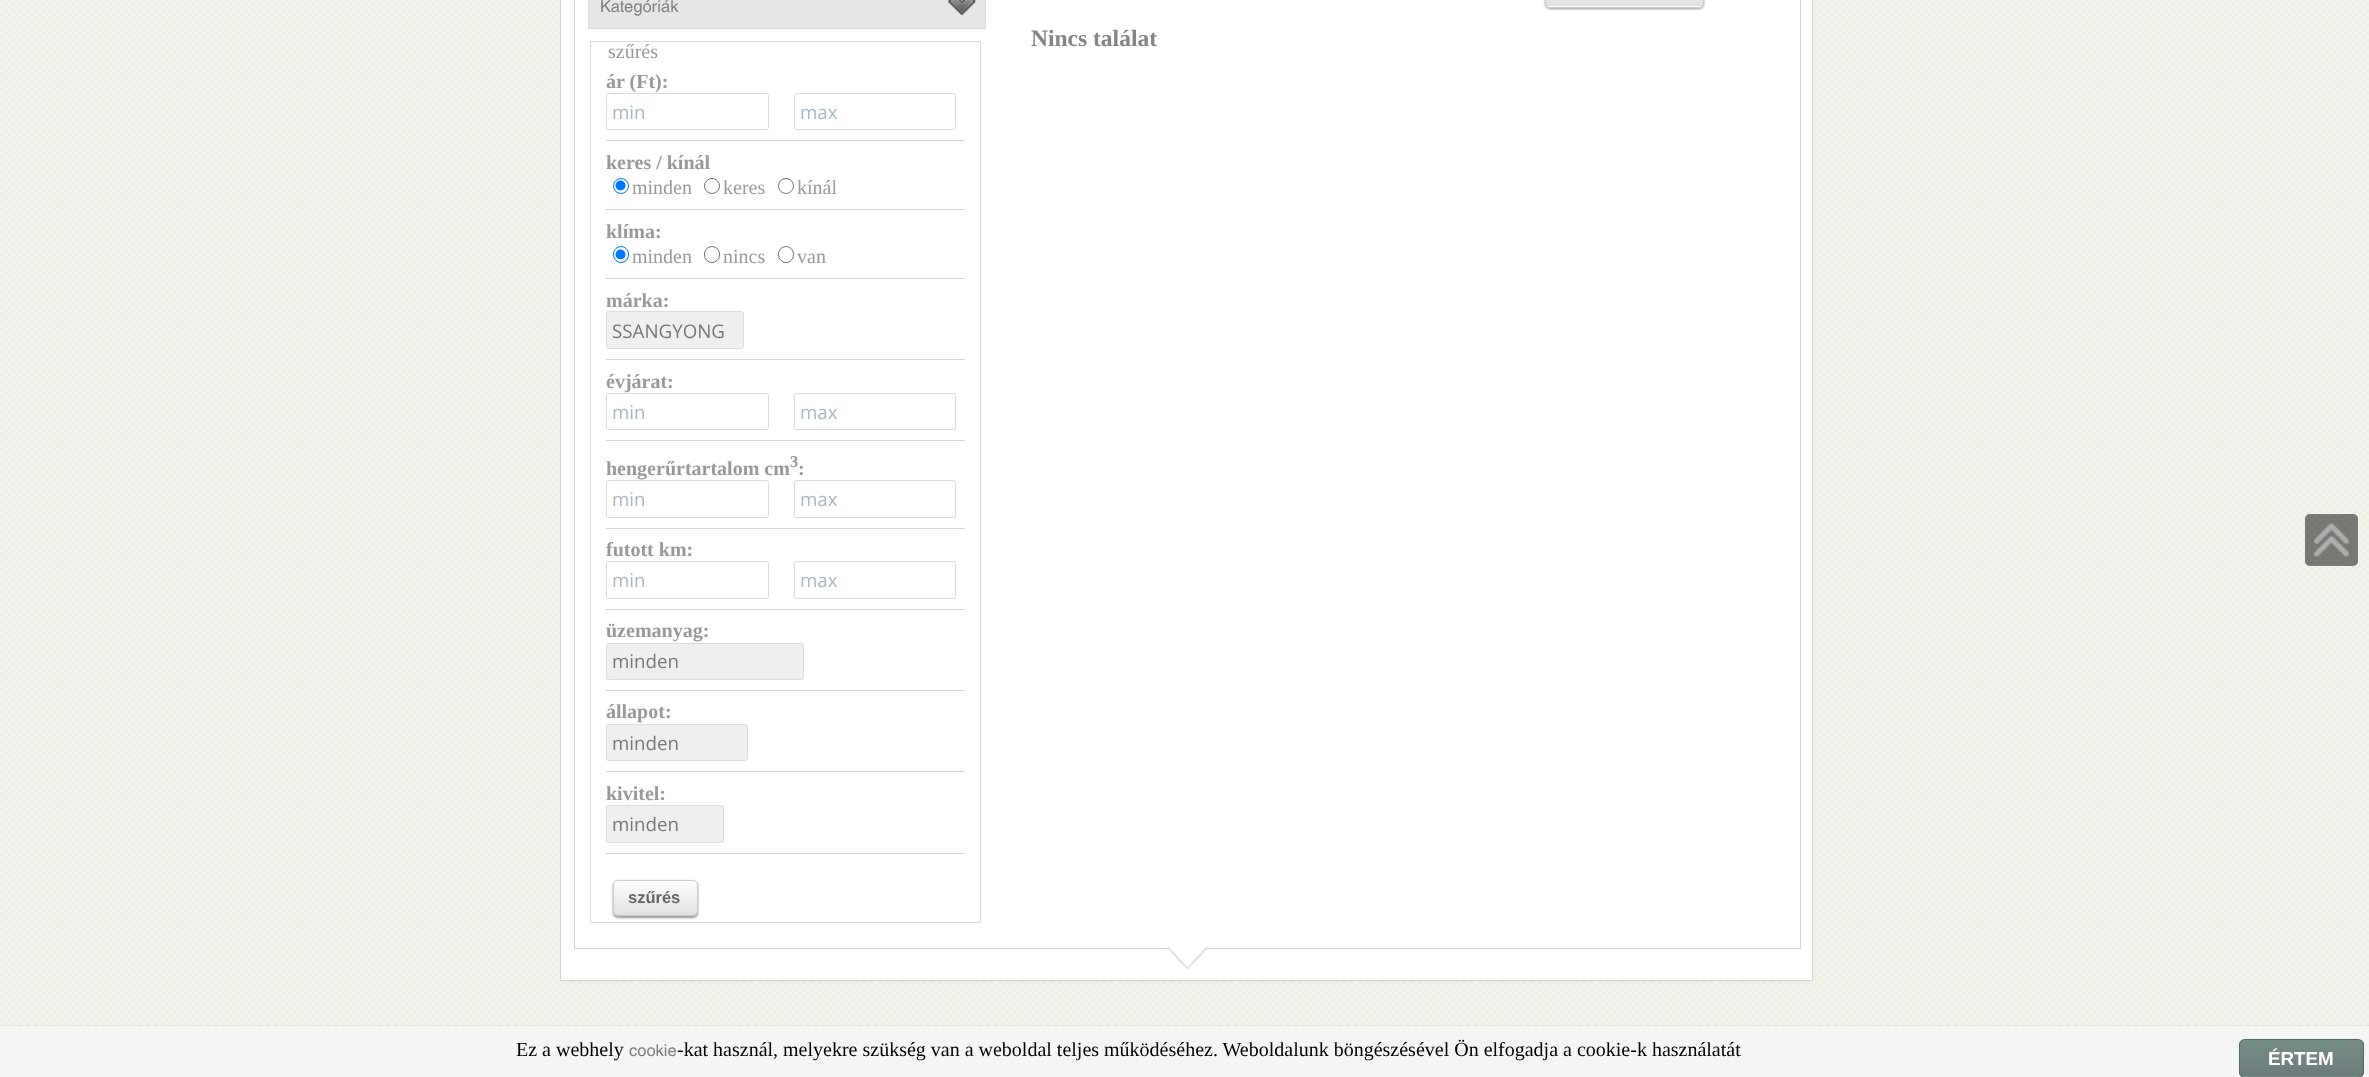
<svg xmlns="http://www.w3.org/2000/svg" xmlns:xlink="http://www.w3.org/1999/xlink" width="2369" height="1077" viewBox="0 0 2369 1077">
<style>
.cls-1{font:16.5px Helvetica;fill:#807f7f}
.cls-2{font:20px Liberation Serif;fill:#999999}
.cls-3{font:bold 20px Liberation Serif;fill:#999999}
.cls-4{font:18.75px Open Sans;fill:#a8b9c3}
.cls-5{font:18.75px Open Sans;fill:#767778}
.cls-6{font:bold 16.5px Liberation Serif;fill:#999999}
.cls-7{font:bold 16.5px Liberation Sans;fill:#666666}
.cls-8{font:bold 23.5px Liberation Serif;fill:#838586}
.cls-9{font:20px Liberation Serif;fill:#000000}
.cls-10{font:bold 18.75px Liberation Sans;fill:#ffffff}
</style>
<defs>
<clipPath id="clip1"><rect x="613" y="880" width="85" height="36" rx="5"/></clipPath>
<linearGradient id="g1" gradientUnits="userSpaceOnUse" x1="614" y1="881" x2="614" y2="915"><stop offset="0" stop-color="#ffffff"/><stop offset="1" stop-color="#e0e0e0"/></linearGradient>
<clipPath id="clip2"><rect x="1545" y="-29" width="159" height="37" rx="5"/></clipPath>
<linearGradient id="g2" gradientUnits="userSpaceOnUse" x1="1546" y1="-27" x2="1546" y2="6.2"><stop offset="0" stop-color="#ffffff"/><stop offset="1" stop-color="#e0e0e0"/></linearGradient>
<linearGradient id="g3" gradientUnits="userSpaceOnUse" x1="1546" y1="6.2" x2="1546" y2="40"><stop offset="0" stop-color="#ffffff"/><stop offset="1" stop-color="#e0e0e0"/></linearGradient>
<clipPath id="clip3"><rect x="2239" y="1039" width="125" height="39" rx="6"/></clipPath>
<linearGradient id="g4" gradientUnits="userSpaceOnUse" x1="2301" y1="1040" x2="2301" y2="1076"><stop offset="0.05" stop-color="#768d87"/><stop offset="1" stop-color="#6c7c7c"/></linearGradient>
<linearGradient id="g5" gradientUnits="userSpaceOnUse" x1="2301" y1="1076" x2="2301" y2="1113"><stop offset="0.05" stop-color="#768d87"/><stop offset="1" stop-color="#6c7c7c"/></linearGradient>
</defs>
<rect width="100%" height="100%" fill="#ffffff"/>
<image xlink:href="image0.png" x="0" y="0" width="2369" height="1025"/>
<rect fill="#ffffff" stroke="#d5d5d5" x="560.5" y="-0.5" width="1252" height="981"/>
<rect fill="none" stroke="#d5d5d5" x="574.5" y="-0.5" width="1226" height="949"/>
<rect fill="#e6e6e6" x="589" y="0" width="396" height="28"/>
<image xlink:href="image1.png" x="947" y="0" width="30" height="16"/>
<rect fill="none" stroke="#dddddd" x="588.5" y="-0.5" width="397" height="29"/>
<rect fill="none" stroke="#dcdcdc" x="590.5" y="41.5" width="390" height="881"/>
<rect fill="none" stroke="#dcdcdc" x="606.5" y="93.5" width="162" height="36" rx="2"/>
<rect fill="none" stroke="#dcdcdc" x="794.5" y="93.5" width="161" height="36" rx="2"/>
<rect fill="#d5d5d5" x="606" y="140" width="359" height="1"/>
<circle fill="none" stroke="#0075ff" cx="621" cy="186" r="7.5"/>
<circle fill="#0075ff" cx="620.5" cy="185.5" r="5"/>
<circle fill="none" stroke="#767676" cx="712" cy="186" r="7.5"/>
<circle fill="none" stroke="#767676" cx="786" cy="186" r="7.5"/>
<rect fill="#d5d5d5" x="606" y="209" width="359" height="1"/>
<rect fill="none" stroke="#0075ff" x="613.5" y="246.5" width="15" height="16" rx="7.5"/>
<circle fill="#0075ff" cx="620.5" cy="254.5" r="5"/>
<rect fill="none" stroke="#767676" x="704.5" y="246.5" width="15" height="16" rx="7.5"/>
<rect fill="none" stroke="#767676" x="778.5" y="246.5" width="15" height="16" rx="7.5"/>
<rect fill="#d5d5d5" x="606" y="278" width="359" height="1"/>
<rect fill="#efefef" stroke="#dcdcdc" x="606.5" y="311.5" width="137" height="37" rx="2"/>
<rect fill="#d5d5d5" x="606" y="359" width="359" height="1"/>
<rect fill="none" stroke="#dcdcdc" x="606.5" y="393.5" width="162" height="36" rx="2"/>
<rect fill="none" stroke="#dcdcdc" x="794.5" y="393.5" width="161" height="36" rx="2"/>
<rect fill="#d5d5d5" x="606" y="440" width="359" height="1"/>
<rect fill="none" stroke="#dcdcdc" x="606.5" y="480.5" width="162" height="37" rx="2"/>
<rect fill="none" stroke="#dcdcdc" x="794.5" y="480.5" width="161" height="37" rx="2"/>
<rect fill="#d5d5d5" x="606" y="528" width="359" height="1"/>
<rect fill="none" stroke="#dcdcdc" x="606.5" y="561.5" width="162" height="37" rx="2"/>
<rect fill="none" stroke="#dcdcdc" x="794.5" y="561.5" width="161" height="37" rx="2"/>
<rect fill="#d5d5d5" x="606" y="609" width="359" height="1"/>
<rect fill="#efefef" stroke="#dcdcdc" x="606.5" y="643.5" width="197" height="36" rx="2"/>
<rect fill="#d5d5d5" x="606" y="690" width="359" height="1"/>
<rect fill="#efefef" stroke="#dcdcdc" x="606.5" y="724.5" width="141" height="36" rx="2"/>
<rect fill="#d5d5d5" x="606" y="771" width="359" height="1"/>
<rect fill="#efefef" stroke="#dcdcdc" x="606.5" y="805.5" width="117" height="37" rx="2"/>
<rect fill="#d5d5d5" x="606" y="853" width="359" height="1"/>
<rect fill="#999999" filter="blur(1px)" x="613" y="881" width="85" height="37" rx="5"/>
<g clip-path="url(#clip1)">
<rect fill="url(#g1)" x="613" y="881" width="85" height="34"/>
</g>
<rect fill="none" stroke="#cccccc" x="613.5" y="880.5" width="84" height="35" rx="4.5"/>
<rect fill="#999999" filter="blur(1px)" x="1545" y="-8" width="159" height="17" rx="5"/>
<g clip-path="url(#clip2)">
<rect fill="url(#g2)" x="1545" y="0" width="159" height="6"/>
<rect fill="url(#g3)" x="1545" y="6" width="159" height="2"/>
</g>
<rect fill="none" stroke="#cccccc" x="1545.5" y="-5.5" width="158" height="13" rx="4.5"/>
<image xlink:href="image2.png" x="1167" y="946" width="41" height="23"/>
<rect fill="#000000" fill-opacity="0.5" x="2305" y="514" width="53" height="52" rx="5"/>
<image xlink:href="image3.png" x="2313" y="523" width="36" height="34"/>
<rect fill="none" stroke="#808080" stroke-opacity="0.5" x="2305.5" y="514.5" width="52" height="51" rx="4.5"/>
<image xlink:href="image4.png" x="0" y="1025" width="2369" height="1"/>
<rect fill="#f5f5f5" x="0" y="1026" width="2369" height="51"/>
<g clip-path="url(#clip3)">
<rect fill="url(#g4)" x="2239" y="1040" width="125" height="36"/>
<rect fill="url(#g5)" x="2239" y="1076" width="125" height="1"/>
</g>
<rect fill="none" stroke="#566963" x="2239.5" y="1039.5" width="124" height="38" rx="5.5"/>
<text class="cls-1" x="600" y="12">Kategóriák</text>
<text class="cls-2" x="608" y="58">szűrés</text>
<text class="cls-3" x="606" y="88">ár (Ft):</text>
<text class="cls-4" x="612" y="119">min</text>
<text class="cls-4" x="800" y="119">max</text>
<text class="cls-3" x="606" y="169">keres / kínál</text>
<text class="cls-2" x="632" y="194">minden</text>
<text class="cls-2" x="723" y="194">keres</text>
<text class="cls-2" x="797" y="194">kínál</text>
<text class="cls-3" x="606" y="238">klíma:</text>
<text class="cls-2" x="632" y="263">minden</text>
<text class="cls-2" x="723" y="263">nincs</text>
<text class="cls-2" x="797" y="263">van</text>
<text class="cls-3" x="606" y="307">márka:</text>
<text class="cls-5" x="612" y="338">SSANGYONG</text>
<text class="cls-3" x="606" y="388">évjárat:</text>
<text class="cls-4" x="612" y="419">min</text>
<text class="cls-4" x="800" y="419">max</text>
<text class="cls-3" x="606" y="475">hengerűrtartalom cm</text>
<text class="cls-6" x="790" y="467">3</text>
<text class="cls-3" x="798" y="475">:</text>
<text class="cls-4" x="612" y="506">min</text>
<text class="cls-4" x="800" y="506">max</text>
<text class="cls-3" x="606" y="556">futott km:</text>
<text class="cls-4" x="612" y="587">min</text>
<text class="cls-4" x="800" y="587">max</text>
<text class="cls-3" x="606" y="637">üzemanyag:</text>
<text class="cls-5" x="612" y="668">minden</text>
<text class="cls-3" x="606" y="718">állapot:</text>
<text class="cls-5" x="612" y="750">minden</text>
<text class="cls-3" x="606" y="800">kivitel:</text>
<text class="cls-5" x="612" y="831">minden</text>
<text class="cls-7" x="628" y="903">szűrés</text>
<text class="cls-8" x="1031" y="46">Nincs találat</text>
<text class="cls-9" x="516" y="1056">Ez a webhely</text>
<text class="cls-1" x="629" y="1056">cookie</text>
<text class="cls-9" x="677" y="1056">-kat használ, melyekre szükség van a weboldal teljes működéséhez. Weboldalunk böngészésével Ön elfogadja a cookie-k használatát</text>
<text class="cls-10" x="2268" y="1065">ÉRTEM</text>
</svg>
